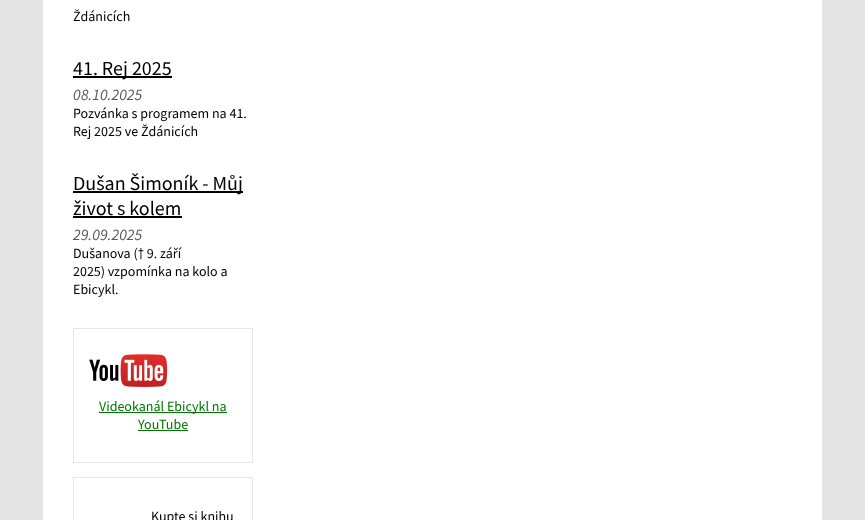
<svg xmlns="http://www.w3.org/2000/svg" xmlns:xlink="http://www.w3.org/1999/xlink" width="865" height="520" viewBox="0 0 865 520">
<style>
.cls-1{font:14px Source Sans Pro;fill:#000000}
.cls-2{font:20px Source Sans Pro;fill:#000000}
.cls-3{font:italic 16px Source Sans Pro;fill:#595959}
.cls-4{font:14px Source Sans Pro;fill:#007502}
</style>
<rect width="100%" height="100%" fill="#e4e4e4"/>
<rect fill="#ffffff" x="43" y="0" width="779" height="520"/>
<rect fill="#000000" x="73" y="76" width="99" height="2"/>
<rect fill="#000000" x="73" y="191" width="170" height="2"/>
<rect fill="#000000" x="73" y="216" width="109" height="2"/>
<rect fill="none" stroke="#e6e6e6" x="73.5" y="328.5" width="179" height="134"/>
<image xlink:href="image0.png" x="89" y="354" width="79" height="33"/>
<rect fill="#007502" x="99" y="412" width="128" height="1"/>
<rect fill="#007502" x="138" y="430" width="50" height="1"/>
<rect fill="none" stroke="#e6e6e6" x="73.5" y="477.5" width="179" height="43"/>
<text class="cls-1" x="73" y="21">Ždánicích</text>
<text class="cls-2" x="73" y="75">41. Rej 2025</text>
<text class="cls-3" x="73" y="100">08.10.2025</text>
<text class="cls-1"><tspan x="73" y="118">Pozvánka s programem na 41.</tspan><tspan x="73" y="136">Rej 2025 ve Ždánicích</tspan></text>
<text class="cls-2"><tspan x="73" y="190">Dušan Šimoník - Můj</tspan><tspan x="73" y="215">život s kolem</tspan></text>
<text class="cls-3" x="73" y="240">29.09.2025</text>
<text class="cls-1"><tspan x="73" y="258">Dušanova († 9. září</tspan><tspan x="73" y="276">2025) vzpomínka na kolo a</tspan><tspan x="73" y="294">Ebicykl.</tspan></text>
<text class="cls-4" x="99" y="411">Videokanál Ebicykl na</text>
<text class="cls-4" x="138" y="429">YouTube</text>
<text class="cls-1" x="151" y="521">Kupte si knihu</text>
</svg>
